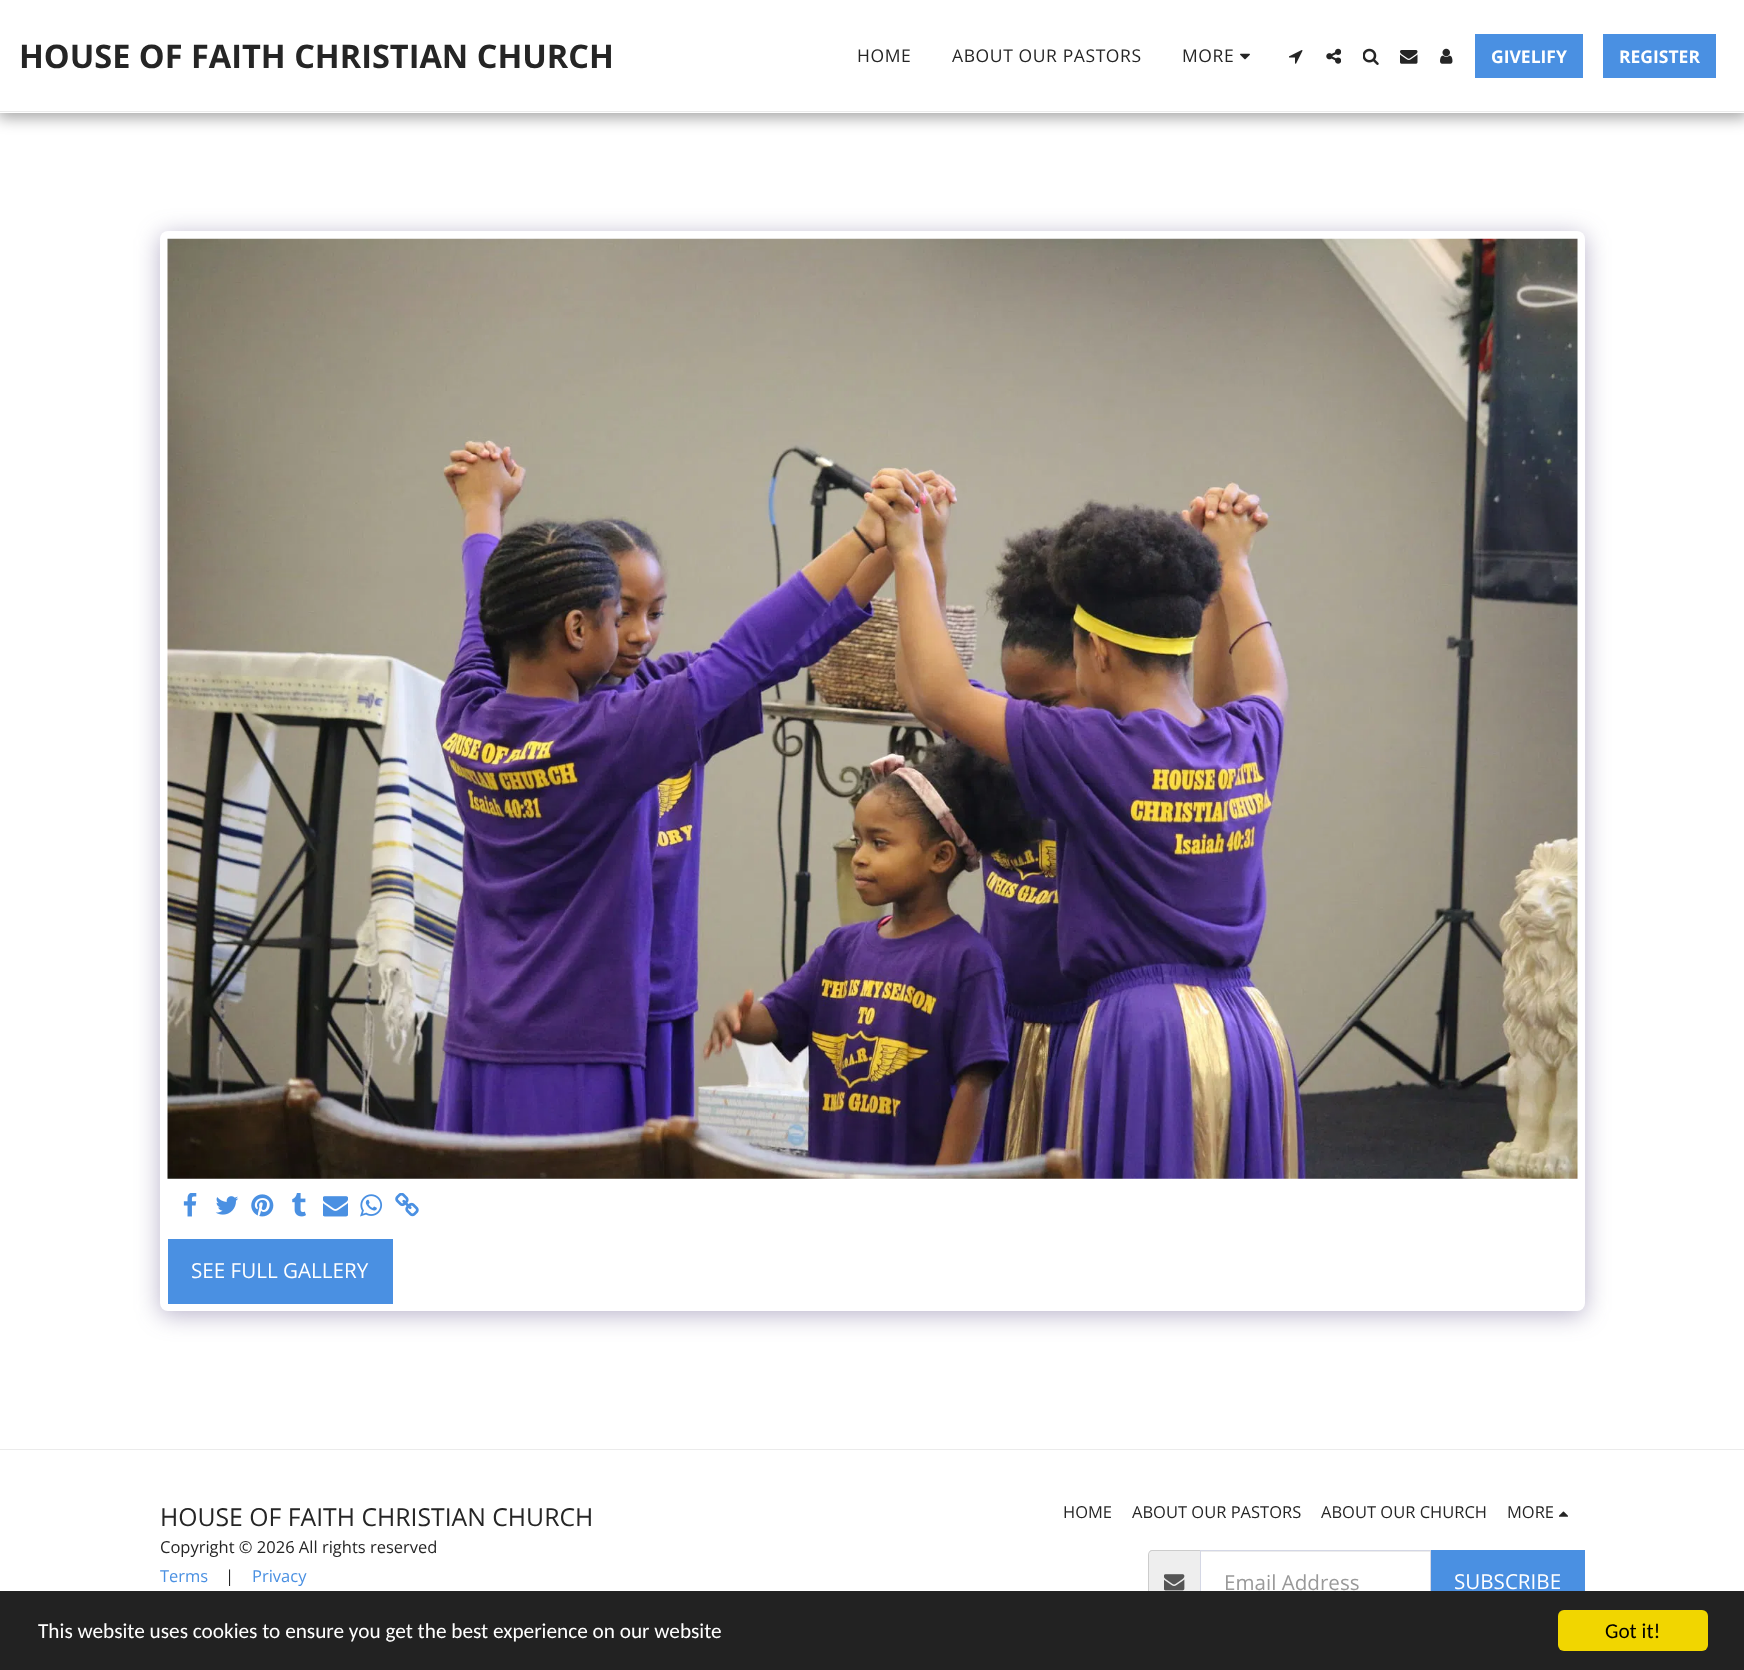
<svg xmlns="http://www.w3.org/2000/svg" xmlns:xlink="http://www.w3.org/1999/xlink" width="1744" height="1670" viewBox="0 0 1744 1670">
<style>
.cls-1{font:bold 32.5px Open Sans;fill:#252525}
.cls-2{font:17.5px Open Sans;letter-spacing:0.6px;fill:#252525}
.cls-3{font:bold 17.5px Open Sans;fill:#ffffff}
.cls-4{font:20.6px Open Sans;fill:#ffffff}
.cls-5{font:24.75px Open Sans;fill:#252525}
.cls-6{font:16.5px Open Sans;fill:#252525}
.cls-7{font:16.5px Open Sans;fill:#4a90e2}
.cls-8{font:20.6px Open Sans;fill:#999999}
.cls-9{font:21.25px Carlito;fill:#ffffff}
.cls-10{font:21.25px Carlito;fill:#000000}
</style>
<rect width="100%" height="100%" fill="#ffffff"/>
<rect fill="#000000" fill-opacity="0.35" filter="blur(7.5px)" x="-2" y="0" width="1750" height="118"/>
<rect fill="#ffffff" x="0" y="0" width="1744" height="113"/>
<rect fill="#ebebeb" x="0" y="111" width="1744" height="1"/>
<image xlink:href="image0.png" x="1240" y="53" width="10" height="7"/>
<image xlink:href="image1.png" x="1289" y="50" width="14" height="14"/>
<image xlink:href="image2.png" x="1326" y="48" width="15" height="16"/>
<image xlink:href="image3.png" x="1363" y="48" width="16" height="17"/>
<image xlink:href="image4.png" x="1400" y="50" width="18" height="14"/>
<image xlink:href="image5.png" x="1440" y="48" width="13" height="16"/>
<rect fill="#4a90e2" x="1475" y="34" width="108" height="44"/>
<rect fill="#4a90e2" x="1603" y="34" width="113" height="44"/>
<rect fill="#4d3f7a" fill-opacity="0.4" filter="blur(12.5px)" x="160" y="235" width="1425" height="1080" rx="8"/>
<rect fill="#ffffff" x="160" y="231" width="1425" height="1080" rx="8"/>
<image xlink:href="image6.png" x="167" y="238" width="1411" height="941"/>
<image xlink:href="image7.png" x="183" y="1193" width="14" height="24"/>
<image xlink:href="image8.png" x="215" y="1196" width="24" height="19"/>
<image xlink:href="image9.png" x="251" y="1194" width="23" height="23"/>
<image xlink:href="image10.png" x="292" y="1193" width="14" height="24"/>
<image xlink:href="image11.png" x="323" y="1196" width="25" height="21"/>
<image xlink:href="image12.png" x="360" y="1194" width="23" height="23"/>
<image xlink:href="image13.png" x="395" y="1193" width="24" height="24"/>
<rect fill="#4a90e2" x="168" y="1239" width="225" height="65"/>
<rect fill="#ebebeb" x="0" y="1449" width="1744" height="1"/>
<image xlink:href="image14.png" x="1559" y="1511" width="9" height="6"/>
<path fill="#eeeeee" d="M1153 1551H1200V1613H1153C1151 1613 1149 1611 1149 1609V1555C1149 1553 1151 1551 1153 1551Z"/>
<path fill="#cccccc" fill-rule="evenodd" d="M1152 1550H1200V1614H1152C1150 1614 1148 1612 1148 1609V1555C1148 1552 1150 1550 1152 1550ZM1152 1551H1200V1612C1194 1612 1153 1613 1150 1612L1149 1610V1554L1150 1552Z"/>
<image xlink:href="image15.png" x="1164" y="1574" width="21" height="17"/>
<rect fill="#ececec" x="1201" y="1551" width="229" height="1"/>
<rect fill="none" stroke="#d4d7e5" x="1200.5" y="1550.5" width="230" height="63"/>
<rect fill="#4a90e2" x="1431" y="1550" width="154" height="41"/>
<rect fill="#222222" x="0" y="1591" width="1744" height="79"/>
<rect fill="#f1d600" x="1558" y="1610" width="150" height="41" rx="6"/>
<text class="cls-1" x="19" y="68">HOUSE OF FAITH CHRISTIAN CHURCH</text>
<text class="cls-2" x="857" y="62">HOME</text>
<text class="cls-2" x="952" y="62">ABOUT OUR PASTORS</text>
<text class="cls-2" x="1182" y="62">MORE</text>
<text class="cls-3" x="1491" y="63">GIVELIFY</text>
<text class="cls-3" x="1619" y="63">REGISTER</text>
<text class="cls-4" x="191" y="1278">SEE FULL GALLERY</text>
<text class="cls-5" x="160" y="1526">HOUSE OF FAITH CHRISTIAN CHURCH</text>
<text class="cls-6" x="160" y="1553">Copyright © 2026 All rights reserved</text>
<text class="cls-7" x="160" y="1582">Terms</text>
<text class="cls-6" x="225" y="1582">|</text>
<text class="cls-7" x="252" y="1582">Privacy</text>
<text class="cls-6" x="1063" y="1518">HOME</text>
<text class="cls-6" x="1132" y="1518">ABOUT OUR PASTORS</text>
<text class="cls-6" x="1321" y="1518">ABOUT OUR CHURCH</text>
<text class="cls-6" x="1507" y="1518">MORE</text>
<text class="cls-8" x="1224" y="1590">Email Address</text>
<text class="cls-4" x="1454" y="1589">SUBSCRIBE</text>
<text class="cls-9" x="38" y="1638">This website uses cookies to ensure you get the best experience on our website</text>
<text class="cls-10" x="1605" y="1638">Got it!</text>
</svg>
